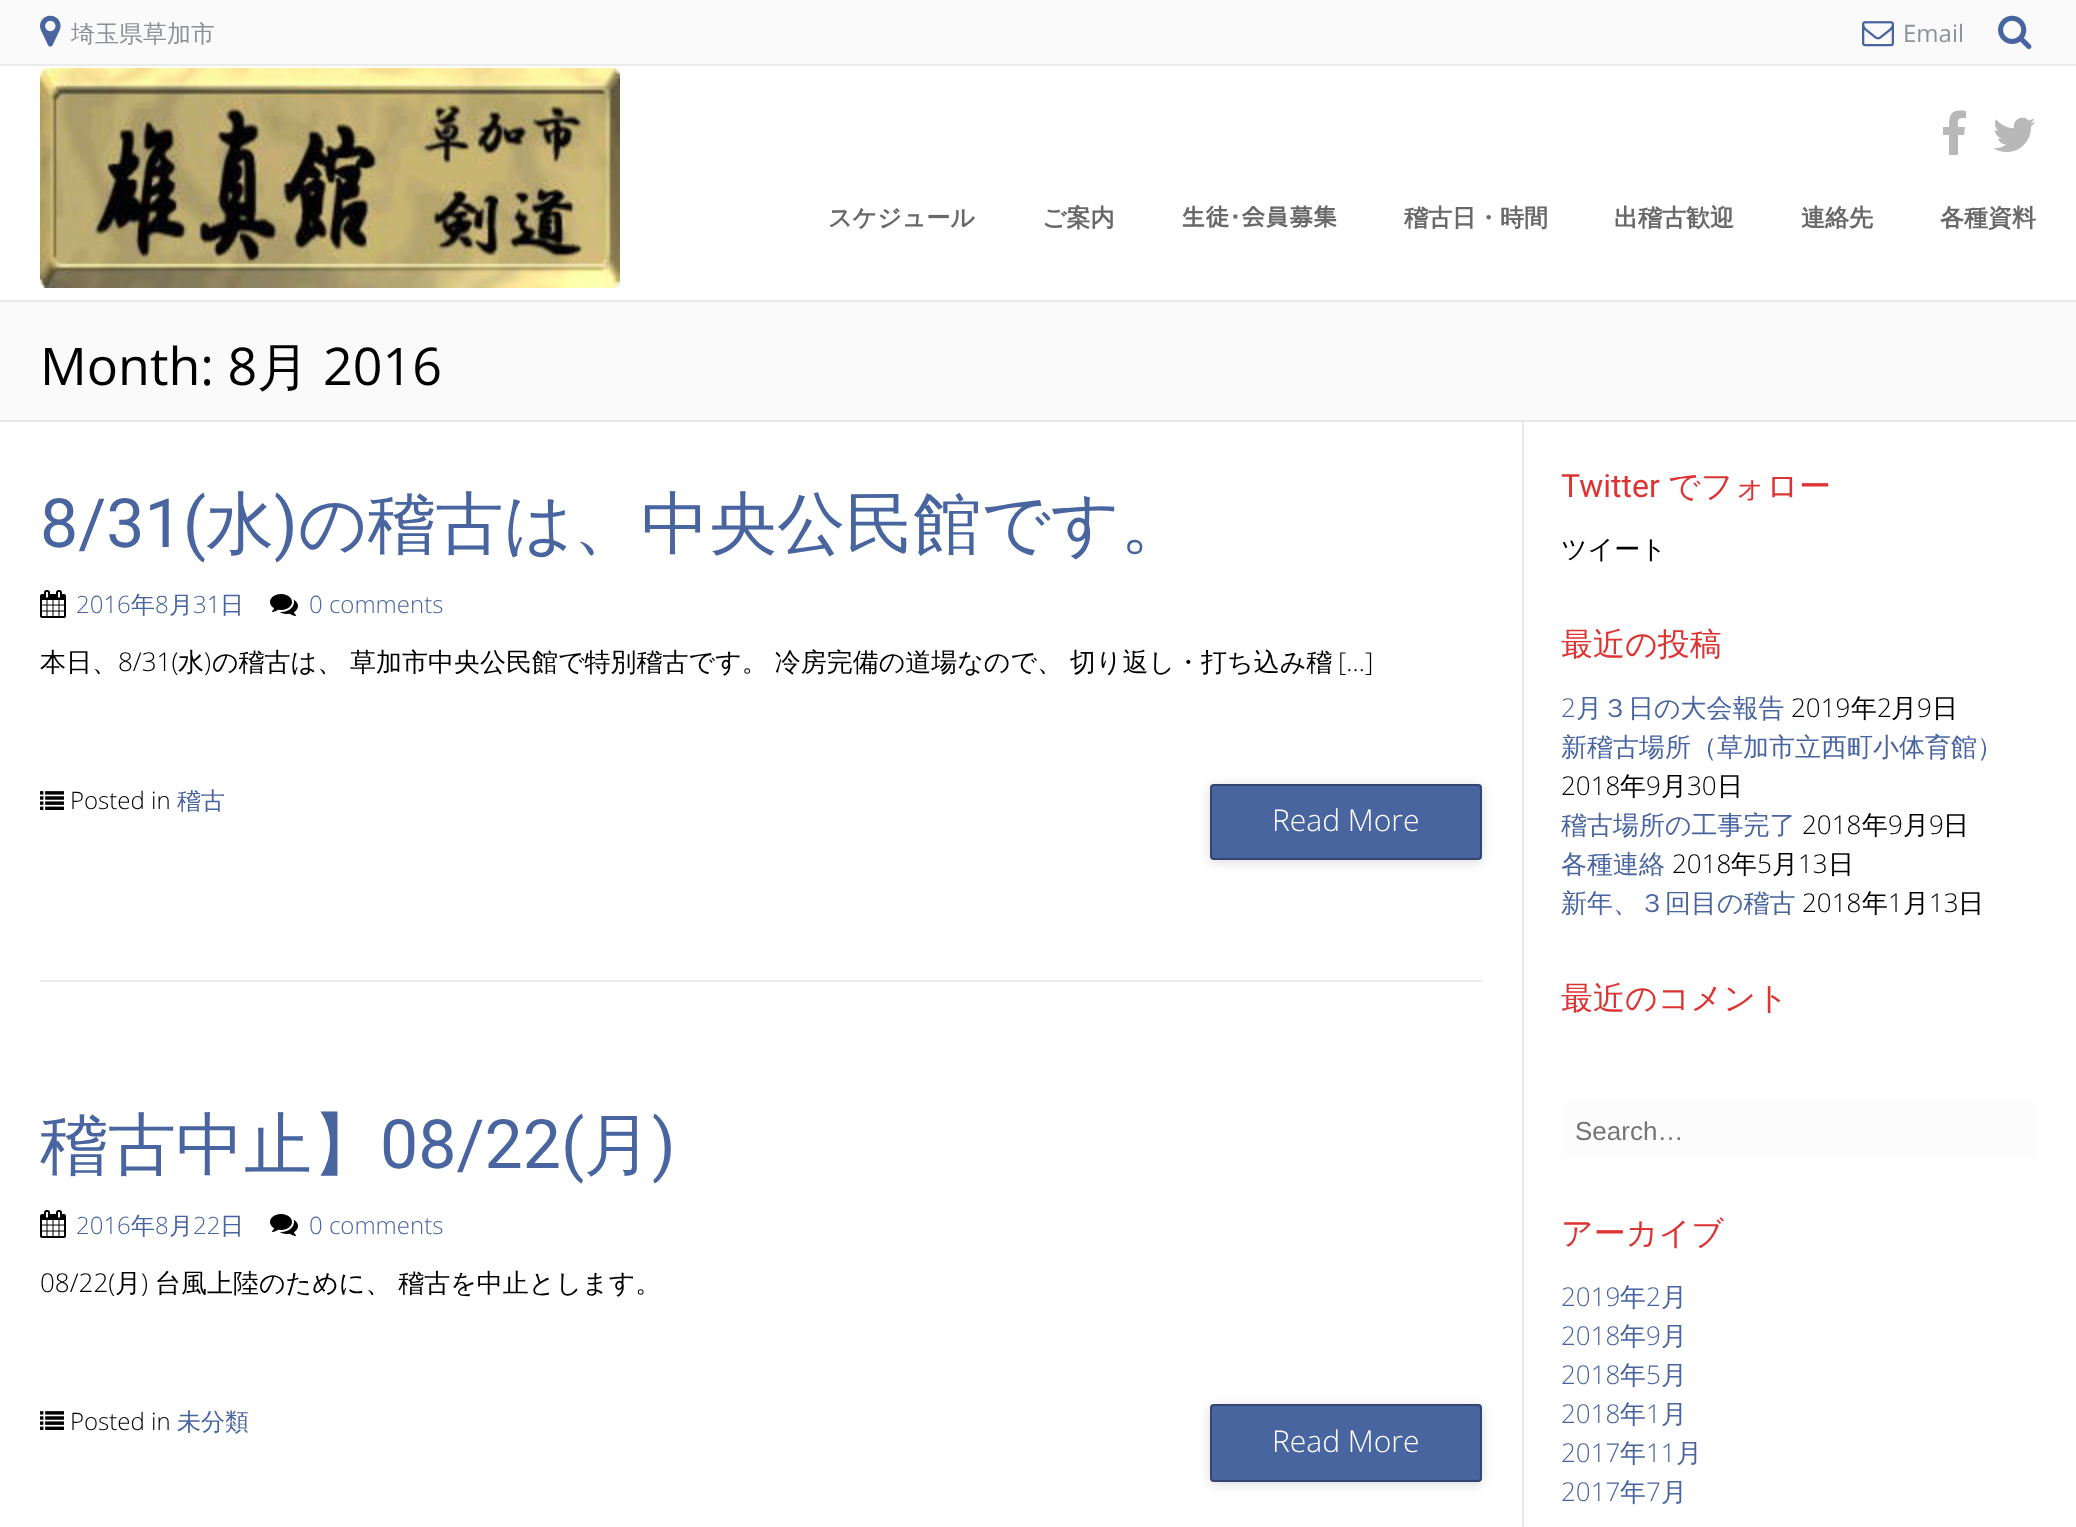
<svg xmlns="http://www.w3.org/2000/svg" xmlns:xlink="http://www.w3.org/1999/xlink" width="2076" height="1527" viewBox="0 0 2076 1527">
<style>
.cls-1{font:500 24px WenQuanYi Zen Hei;fill:#8d9095}
.cls-2{font:24px Open Sans;fill:#8d9095}
.cls-3{font:bold 24px WenQuanYi Zen Hei;fill:#696969}
.cls-4{font:bold 24px IPAPGothic;fill:#696969}
.cls-5{font:52px Open Sans;fill:#000000}
.cls-6{font:500 52px WenQuanYi Zen Hei;fill:#000000}
.cls-7{font:68px Roboto;fill:#4965a0}
.cls-8{font:500 68px WenQuanYi Zen Hei;fill:#4965a0}
.cls-9{font:300 24px Open Sans;fill:#4965a0}
.cls-10{font:500 24px WenQuanYi Zen Hei;fill:#4965a0}
.cls-11{font:500 26px WenQuanYi Zen Hei;fill:#000000}
.cls-12{font:300 26px Open Sans;fill:#000000}
.cls-13{font:300 24px Open Sans;fill:#000000}
.cls-14{font:300 30px Open Sans;fill:#ffffff}
.cls-15{font:32px Roboto;fill:#dd3333}
.cls-16{font:500 32px WenQuanYi Zen Hei;fill:#dd3333}
.cls-17{font:300 26px Open Sans;fill:#4965a0}
.cls-18{font:500 26px WenQuanYi Zen Hei;fill:#4965a0}
.cls-19{font:26px Liberation Sans;fill:#757575}
</style>
<rect width="100%" height="100%" fill="#ffffff"/>
<rect fill="#ebebeb" x="0" y="300" width="2076" height="2"/>
<rect fill="#fafafa" x="0" y="0" width="2076" height="64"/>
<rect fill="#ebebeb" x="0" y="64" width="2076" height="2"/>
<image xlink:href="image0.png" x="40" y="15" width="21" height="32"/>
<image xlink:href="image1.png" x="1862" y="21" width="32" height="26"/>
<image xlink:href="image2.png" x="1998" y="15" width="34" height="35"/>
<image xlink:href="image3.png" x="40" y="68" width="580" height="220"/>
<path fill="#b8b8b8" d="M1966 111V118C1957 118 1958 119 1958 127H1965L1964 135H1958V155H1949V135H1943V127H1949C1949 114 1951 109 1966 111Z"/>
<image xlink:href="image4.png" x="1993" y="117" width="42" height="35"/>
<rect fill="#fafafa" x="0" y="302" width="2076" height="118"/>
<rect fill="#e6e6e6" x="0" y="420" width="2076" height="2"/>
<rect fill="#eaeaea" x="1522" y="422" width="2" height="1105"/>
<rect fill="#ebebeb" x="40" y="980" width="1442" height="2"/>
<image xlink:href="image5.png" x="40" y="590" width="26" height="28"/>
<image xlink:href="image6.png" x="270" y="594" width="28" height="22"/>
<image xlink:href="image7.png" x="40" y="791" width="24" height="19"/>
<rect fill="#000000" fill-opacity="0.15" filter="blur(6px)" x="1210" y="786" width="272" height="76" rx="4"/>
<rect fill="#4965a0" x="1210" y="784" width="272" height="76" rx="4"/>
<rect fill="none" stroke="#000000" stroke-opacity="0.3" stroke-width="2" x="1211" y="785" width="270" height="74" rx="3"/>
<image xlink:href="image5.png" x="40" y="1210" width="26" height="28"/>
<image xlink:href="image6.png" x="270" y="1214" width="28" height="22"/>
<image xlink:href="image7.png" x="40" y="1411" width="24" height="19"/>
<rect fill="#000000" fill-opacity="0.15" filter="blur(6px)" x="1210" y="1406" width="272" height="78" rx="4"/>
<rect fill="#4965a0" x="1210" y="1404" width="272" height="78" rx="4"/>
<rect fill="none" stroke="#000000" stroke-opacity="0.3" stroke-width="2" x="1211" y="1405" width="270" height="76" rx="3"/>
<rect fill="#fcfcfc" x="1562" y="1102" width="474" height="56" rx="2"/>
<text class="cls-1" x="71" y="42">埼玉県草加市</text>
<text class="cls-2" x="1903" y="42">Email</text>
<text class="cls-3" x="828" y="226">スケジュール</text>
<text class="cls-3" x="1042" y="226">ご案内</text>
<text class="cls-4" x="1181" y="226">生徒･会員募集</text>
<text class="cls-3" x="1404" y="226">稽古日・時間</text>
<text class="cls-3" x="1614" y="226">出稽古歓迎</text>
<text class="cls-3" x="1801" y="226">連絡先</text>
<text class="cls-3" x="1940" y="226">各種資料</text>
<text class="cls-5" x="40" y="385">Month: 8</text>
<text class="cls-6" x="257" y="385">月</text>
<text class="cls-5" x="323" y="385">2016</text>
<text class="cls-7" x="40" y="547">8/31(</text>
<text class="cls-8" x="206" y="547">水</text>
<text class="cls-7" x="274" y="547">)</text>
<text class="cls-8" x="298" y="547">の稽古は、中央公民館です。</text>
<text class="cls-9" x="76" y="613">2016</text>
<text class="cls-10" x="131" y="613">年</text>
<text class="cls-9" x="155" y="613">8</text>
<text class="cls-10" x="169" y="613">月</text>
<text class="cls-9" x="193" y="613">31</text>
<text class="cls-10" x="220" y="613">日</text>
<text class="cls-9" x="309" y="613">0 comments</text>
<text class="cls-11" x="40" y="671">本日、</text>
<text class="cls-12" x="118" y="671">8/31(</text>
<text class="cls-11" x="178" y="671">水</text>
<text class="cls-12" x="204" y="671">)</text>
<text class="cls-11" x="212" y="671" word-spacing="-1">の稽古は、 草加市中央公民館で特別稽古です。 冷房完備の道場なので、 切り返し・打ち込み稽</text>
<text class="cls-12" x="1338" y="671">[…]</text>
<text class="cls-13" x="70" y="809">Posted in</text>
<text class="cls-10" x="177" y="809">稽古</text>
<text class="cls-14" x="1272" y="831">Read More</text>
<text class="cls-8" x="40" y="1168">稽古中止】</text>
<text class="cls-7" x="380" y="1168">08/22(</text>
<text class="cls-8" x="584" y="1168">月</text>
<text class="cls-7" x="652" y="1168">)</text>
<text class="cls-9" x="76" y="1234">2016</text>
<text class="cls-10" x="131" y="1234">年</text>
<text class="cls-9" x="155" y="1234">8</text>
<text class="cls-10" x="169" y="1234">月</text>
<text class="cls-9" x="193" y="1234">22</text>
<text class="cls-10" x="220" y="1234">日</text>
<text class="cls-9" x="309" y="1234">0 comments</text>
<text class="cls-12" x="40" y="1292">08/22(</text>
<text class="cls-11" x="115" y="1292">月</text>
<text class="cls-12" x="141" y="1292">)</text>
<text class="cls-11" x="155" y="1292" word-spacing="-1">台風上陸のために、 稽古を中止とします。</text>
<text class="cls-13" x="70" y="1430">Posted in</text>
<text class="cls-10" x="177" y="1430">未分類</text>
<text class="cls-14" x="1272" y="1452">Read More</text>
<text class="cls-15" x="1561" y="497">Twitter</text>
<text class="cls-16" x="1668" y="497">でフォロー</text>
<text class="cls-11" x="1561" y="558">ツイート</text>
<text class="cls-16" x="1561" y="655">最近の投稿</text>
<text class="cls-17" x="1561" y="717">2</text>
<text class="cls-18" x="1576" y="717">月３日の大会報告</text>
<text class="cls-12" x="1791" y="717">2019</text>
<text class="cls-11" x="1851" y="717">年</text>
<text class="cls-12" x="1877" y="717">2</text>
<text class="cls-11" x="1891" y="717">月</text>
<text class="cls-12" x="1917" y="717">9</text>
<text class="cls-11" x="1932" y="717">日</text>
<text class="cls-18" x="1561" y="756">新稽古場所（草加市立西町小体育館）</text>
<text class="cls-12" x="1561" y="795">2018</text>
<text class="cls-11" x="1620" y="795">年</text>
<text class="cls-12" x="1646" y="795">9</text>
<text class="cls-11" x="1661" y="795">月</text>
<text class="cls-12" x="1687" y="795">30</text>
<text class="cls-11" x="1717" y="795">日</text>
<text class="cls-18" x="1561" y="834">稽古場所の工事完了</text>
<text class="cls-12" x="1802" y="834">2018</text>
<text class="cls-11" x="1862" y="834">年</text>
<text class="cls-12" x="1888" y="834">9</text>
<text class="cls-11" x="1903" y="834">月</text>
<text class="cls-12" x="1929" y="834">9</text>
<text class="cls-11" x="1943" y="834">日</text>
<text class="cls-18" x="1561" y="873">各種連絡</text>
<text class="cls-12" x="1672" y="873">2018</text>
<text class="cls-11" x="1731" y="873">年</text>
<text class="cls-12" x="1757" y="873">5</text>
<text class="cls-11" x="1772" y="873">月</text>
<text class="cls-12" x="1798" y="873">13</text>
<text class="cls-11" x="1828" y="873">日</text>
<text class="cls-18" x="1561" y="912">新年、３回目の稽古</text>
<text class="cls-12" x="1802" y="912">2018</text>
<text class="cls-11" x="1862" y="912">年</text>
<text class="cls-12" x="1888" y="912">1</text>
<text class="cls-11" x="1903" y="912">月</text>
<text class="cls-12" x="1929" y="912">13</text>
<text class="cls-11" x="1958" y="912">日</text>
<text class="cls-16" x="1561" y="1009">最近のコメント</text>
<text class="cls-19" x="1575" y="1140">Search…</text>
<text class="cls-16" x="1561" y="1244">アーカイブ</text>
<text class="cls-17" x="1561" y="1306">2019</text>
<text class="cls-18" x="1620" y="1306">年</text>
<text class="cls-17" x="1646" y="1306">2</text>
<text class="cls-18" x="1661" y="1306">月</text>
<text class="cls-17" x="1561" y="1345">2018</text>
<text class="cls-18" x="1620" y="1345">年</text>
<text class="cls-17" x="1646" y="1345">9</text>
<text class="cls-18" x="1661" y="1345">月</text>
<text class="cls-17" x="1561" y="1384">2018</text>
<text class="cls-18" x="1620" y="1384">年</text>
<text class="cls-17" x="1646" y="1384">5</text>
<text class="cls-18" x="1661" y="1384">月</text>
<text class="cls-17" x="1561" y="1423">2018</text>
<text class="cls-18" x="1620" y="1423">年</text>
<text class="cls-17" x="1646" y="1423">1</text>
<text class="cls-18" x="1661" y="1423">月</text>
<text class="cls-17" x="1561" y="1462">2017</text>
<text class="cls-18" x="1620" y="1462">年</text>
<text class="cls-17" x="1646" y="1462">11</text>
<text class="cls-18" x="1676" y="1462">月</text>
<text class="cls-17" x="1561" y="1501">2017</text>
<text class="cls-18" x="1620" y="1501">年</text>
<text class="cls-17" x="1646" y="1501">7</text>
<text class="cls-18" x="1661" y="1501">月</text>
</svg>
